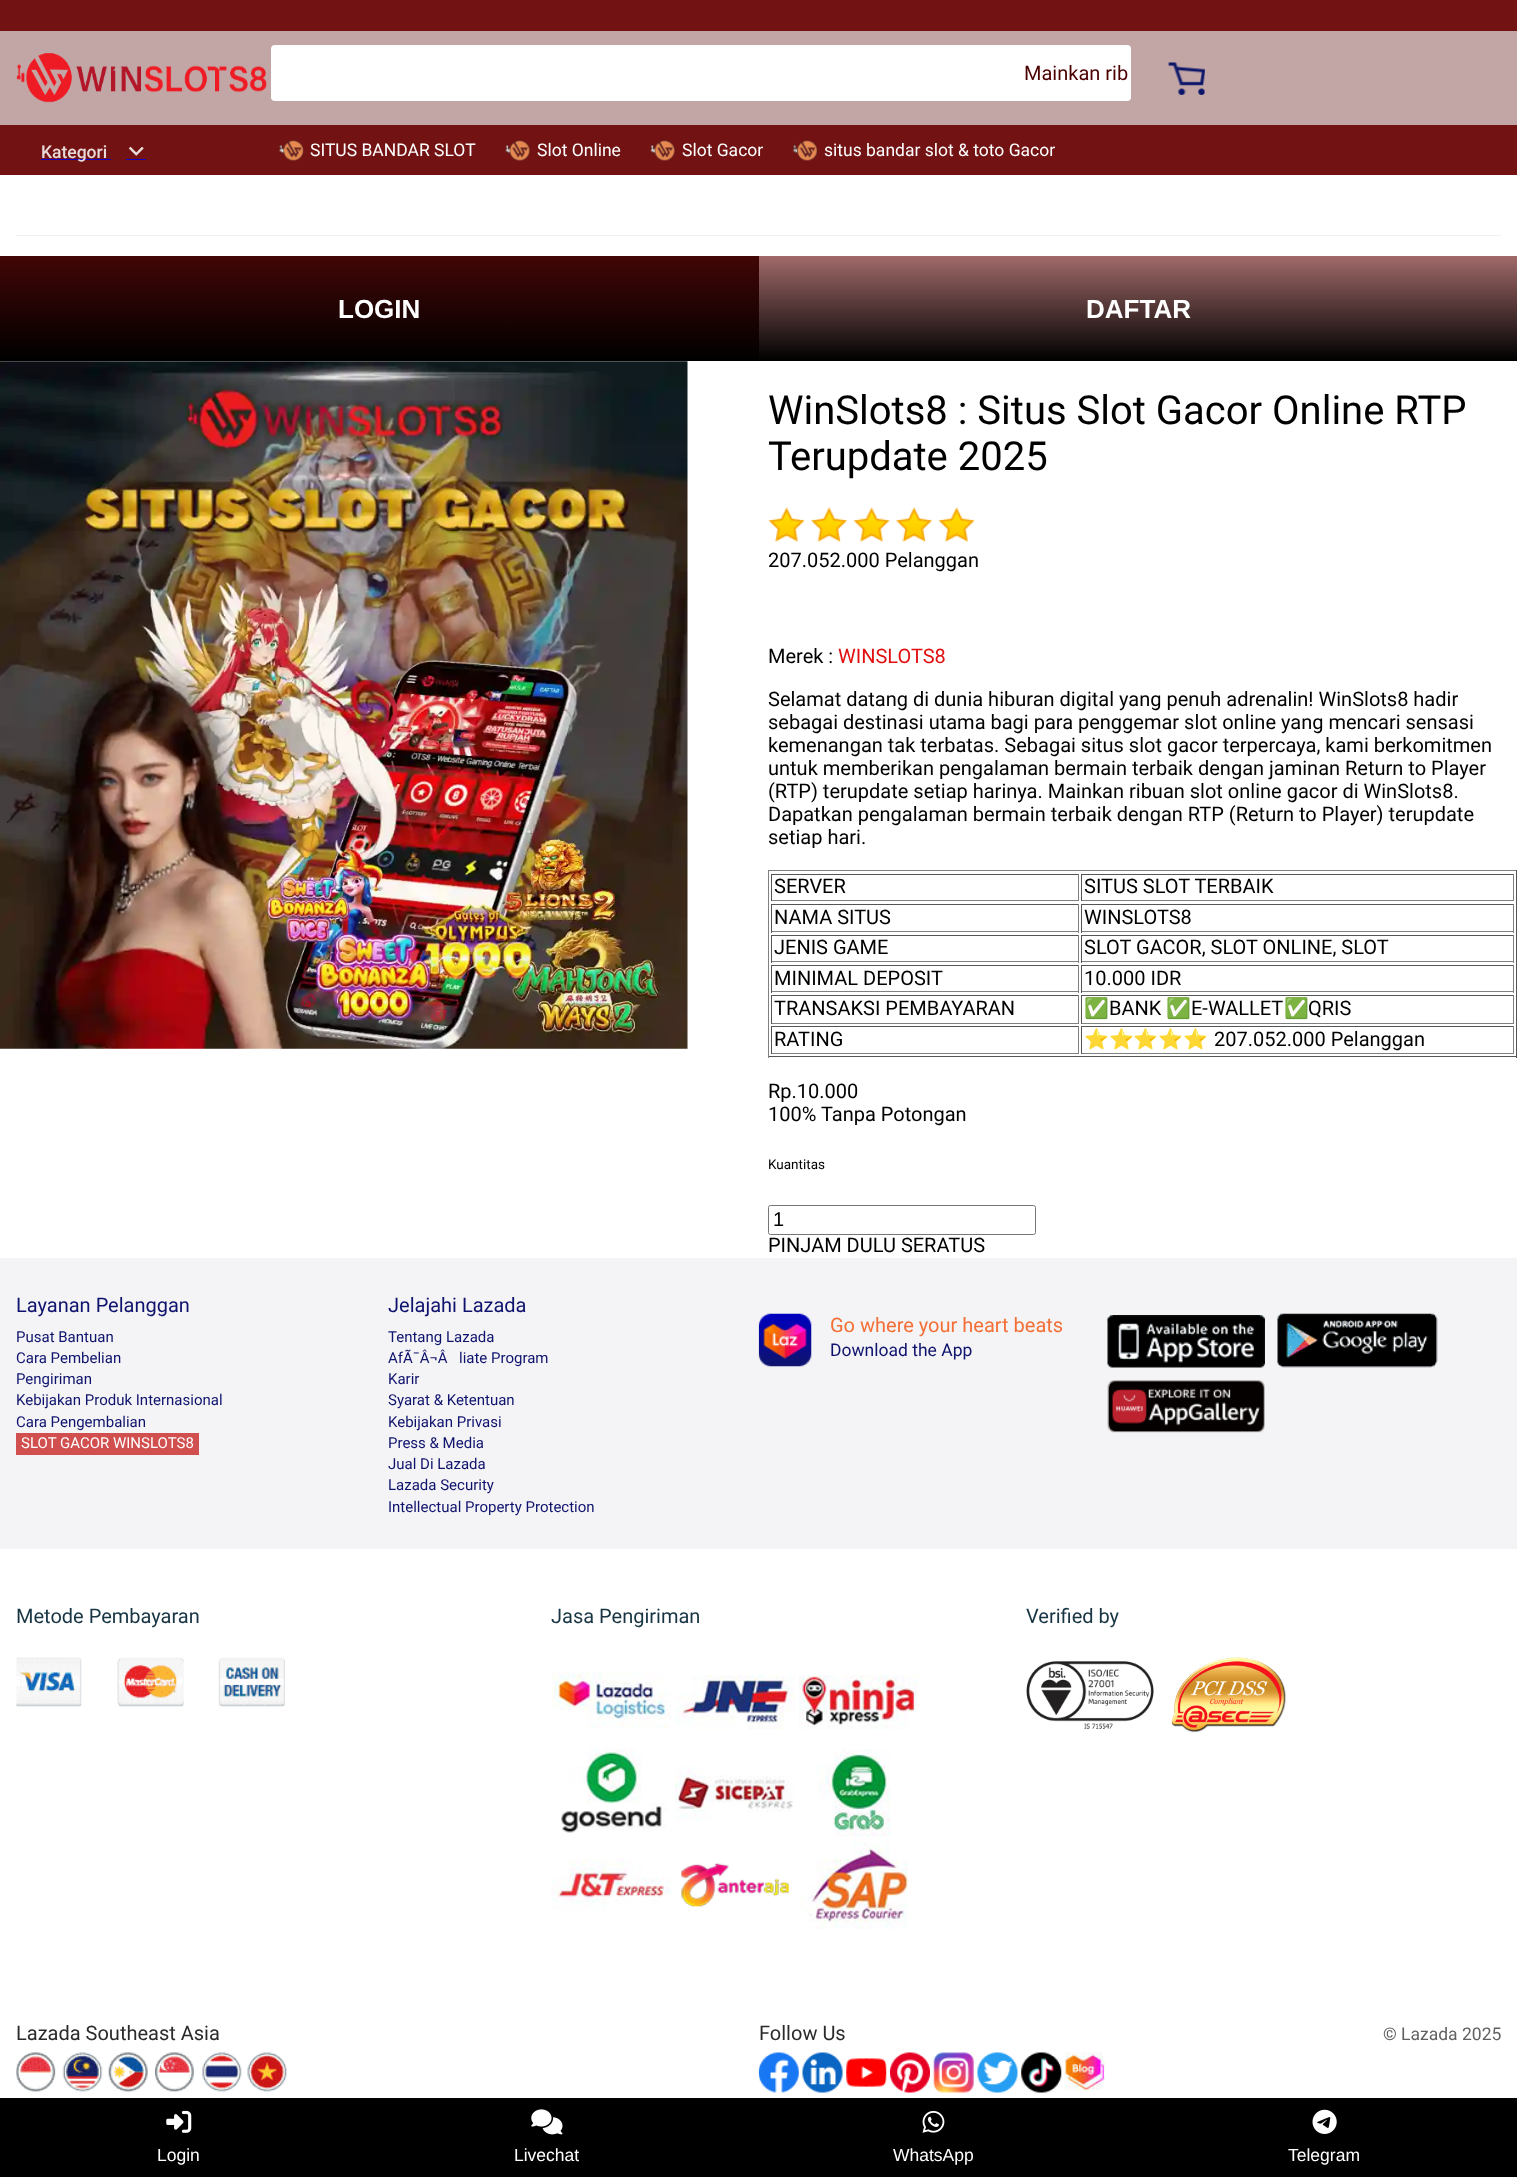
<svg xmlns="http://www.w3.org/2000/svg" xmlns:xlink="http://www.w3.org/1999/xlink" width="1517" height="2177" viewBox="0 0 1517 2177">
<style>
.cls-1{font:20px Roboto;fill:#4d0202}
.cls-2{font:500 17.5px Roboto;fill:#eadbdb}
.cls-3{font:17.5px Roboto;fill:#ffffff}
.cls-4{font:bold 26px Liberation Sans;fill:#ffffff}
.cls-5{font:40px Roboto;fill:#000000}
.cls-6{font:20px Roboto;fill:#000000}
.cls-7{font:20px Roboto;fill:#e20f0f}
.cls-8{font:bold 20px Noto Color Emoji;fill:#000000}
.cls-9{font:13.5px Roboto;fill:#000000}
.cls-10{font:20px Liberation Sans;fill:#000000}
.cls-11{font:20px Roboto;fill:#0f136d}
.cls-12{font:15px Roboto;fill:#0f136d}
.cls-13{font:15px Roboto;fill:#ffffff}
.cls-14{font:20px Roboto;fill:#f36f36}
.cls-15{font:17.5px Roboto;fill:#0f136d}
.cls-16{font:20px Roboto;fill:#183544}
.cls-17{font:20px Roboto;fill:#2a2a2a}
.cls-18{font:17.5px Roboto;fill:#606060}
.cls-19{font:17.5px Liberation Sans;fill:#ffffff}
</style>
<defs>
<linearGradient id="g1" gradientUnits="userSpaceOnUse" x1="379" y1="256" x2="379" y2="361"><stop offset="0" stop-color="#420606"/><stop offset="1" stop-color="#000000"/></linearGradient>
<linearGradient id="g2" gradientUnits="userSpaceOnUse" x1="1138" y1="256" x2="1138" y2="361"><stop offset="0" stop-color="#a16969"/><stop offset="1" stop-color="#000000"/></linearGradient>
</defs>
<rect width="100%" height="100%" fill="#ffffff"/>
<rect fill="#721212" x="0" y="0" width="1517" height="31"/>
<rect fill="#c2a6a6" x="0" y="31" width="1517" height="94"/>
<image xlink:href="image0.png" x="16" y="53" width="251" height="50"/>
<rect fill="#ffffff" x="271" y="45" width="860" height="56" rx="4"/>
<image xlink:href="image1.png" x="1168" y="62" width="37" height="33"/>
<rect fill="#721212" x="0" y="125" width="1517" height="50"/>
<rect fill="#1103cd" x="41" y="159" width="70" height="1"/>
<rect fill="#1103cd" x="126" y="159" width="20" height="1"/>
<image xlink:href="image2.png" x="128" y="146" width="16" height="10"/>
<image xlink:href="image3.png" x="279" y="140" width="25" height="21"/>
<image xlink:href="image4.png" x="505" y="140" width="25" height="21"/>
<image xlink:href="image4.png" x="650" y="140" width="25" height="21"/>
<image xlink:href="image5.png" x="792" y="140" width="26" height="21"/>
<rect fill="#eff0f5" x="16" y="235" width="1485" height="1"/>
<rect fill="url(#g1)" x="0" y="256" width="759" height="105"/>
<rect fill="url(#g2)" x="759" y="256" width="758" height="105"/>
<image xlink:href="image6.png" x="0" y="361" width="688" height="688"/>
<image xlink:href="image7.png" x="768" y="507" width="37" height="35"/>
<image xlink:href="image8.png" x="811" y="507" width="37" height="35"/>
<image xlink:href="image7.png" x="853" y="507" width="37" height="35"/>
<image xlink:href="image9.png" x="896" y="507" width="37" height="35"/>
<image xlink:href="image10.png" x="938" y="507" width="37" height="35"/>
<rect fill="#808080" x="768" y="870" width="749" height="1"/>
<rect fill="#555555" x="1516" y="870" width="1" height="188"/>
<rect fill="#555555" x="768" y="1056" width="749" height="1"/>
<rect fill="#808080" x="768" y="870" width="1" height="188"/>
<rect fill="#555555" x="771" y="874" width="308" height="1"/>
<rect fill="#808080" x="1078" y="874" width="1" height="27"/>
<rect fill="#808080" x="771" y="900" width="308" height="1"/>
<rect fill="#555555" x="771" y="874" width="1" height="27"/>
<rect fill="#555555" x="1081" y="874" width="433" height="1"/>
<rect fill="#808080" x="1513" y="874" width="1" height="27"/>
<rect fill="#808080" x="1081" y="900" width="433" height="1"/>
<rect fill="#555555" x="1081" y="874" width="1" height="27"/>
<rect fill="#555555" x="771" y="904" width="308" height="1"/>
<rect fill="#808080" x="1078" y="904" width="1" height="29"/>
<rect fill="#808080" x="771" y="931" width="308" height="1"/>
<rect fill="#555555" x="771" y="904" width="1" height="29"/>
<rect fill="#555555" x="1081" y="904" width="433" height="1"/>
<rect fill="#808080" x="1513" y="904" width="1" height="29"/>
<rect fill="#808080" x="1081" y="931" width="433" height="1"/>
<rect fill="#555555" x="1081" y="904" width="1" height="29"/>
<rect fill="#555555" x="771" y="935" width="308" height="1"/>
<rect fill="#808080" x="1078" y="935" width="1" height="28"/>
<rect fill="#808080" x="771" y="961" width="308" height="1"/>
<rect fill="#555555" x="771" y="935" width="1" height="28"/>
<rect fill="#555555" x="1081" y="935" width="433" height="1"/>
<rect fill="#808080" x="1513" y="935" width="1" height="28"/>
<rect fill="#808080" x="1081" y="961" width="433" height="1"/>
<rect fill="#555555" x="1081" y="935" width="1" height="28"/>
<rect fill="#555555" x="771" y="965" width="308" height="1"/>
<rect fill="#808080" x="1078" y="965" width="1" height="28"/>
<rect fill="#808080" x="771" y="991" width="308" height="1"/>
<rect fill="#555555" x="771" y="965" width="1" height="28"/>
<rect fill="#555555" x="1081" y="965" width="433" height="1"/>
<rect fill="#808080" x="1513" y="965" width="1" height="28"/>
<rect fill="#808080" x="1081" y="991" width="433" height="1"/>
<rect fill="#555555" x="1081" y="965" width="1" height="28"/>
<rect fill="#555555" x="771" y="995" width="308" height="1"/>
<rect fill="#808080" x="1078" y="995" width="1" height="29"/>
<rect fill="#808080" x="771" y="1023" width="308" height="1"/>
<rect fill="#555555" x="771" y="995" width="1" height="29"/>
<rect fill="#555555" x="1081" y="995" width="433" height="1"/>
<rect fill="#808080" x="1513" y="995" width="1" height="29"/>
<rect fill="#808080" x="1081" y="1023" width="433" height="1"/>
<rect fill="#555555" x="1081" y="995" width="1" height="29"/>
<rect fill="#555555" x="771" y="1026" width="308" height="1"/>
<rect fill="#808080" x="1078" y="1026" width="1" height="28"/>
<rect fill="#808080" x="771" y="1053" width="308" height="1"/>
<rect fill="#555555" x="771" y="1026" width="1" height="28"/>
<rect fill="#555555" x="1081" y="1026" width="433" height="1"/>
<rect fill="#808080" x="1513" y="1026" width="1" height="28"/>
<rect fill="#808080" x="1081" y="1053" width="433" height="1"/>
<rect fill="#555555" x="1081" y="1026" width="1" height="28"/>
<rect fill="none" stroke="#767676" x="768.5" y="1205.5" width="267" height="29" rx="2"/>
<rect fill="#f4f4f6" x="0" y="1258" width="1517" height="291"/>
<rect fill="#d14f4f" x="16" y="1433" width="183" height="22"/>
<image xlink:href="image11.png" x="758" y="1313" width="54" height="54"/>
<image xlink:href="image12.png" x="1107" y="1315" width="158" height="53"/>
<image xlink:href="image13.png" x="1277" y="1313" width="161" height="55"/>
<image xlink:href="image14.png" x="1107" y="1380" width="158" height="53"/>
<image xlink:href="image15.png" x="16" y="1657" width="66" height="50"/>
<image xlink:href="image16.png" x="117" y="1657" width="67" height="50"/>
<image xlink:href="image17.png" x="218" y="1657" width="67" height="50"/>
<image xlink:href="image18.png" x="551" y="1672" width="120" height="57"/>
<image xlink:href="image19.png" x="675" y="1675" width="120" height="55"/>
<image xlink:href="image20.png" x="799" y="1675" width="120" height="55"/>
<image xlink:href="image21.png" x="561" y="1748" width="106" height="85"/>
<image xlink:href="image22.png" x="675" y="1766" width="118" height="55"/>
<image xlink:href="image23.png" x="816" y="1749" width="75" height="88"/>
<image xlink:href="image24.png" x="551" y="1859" width="121" height="51"/>
<image xlink:href="image25.png" x="681" y="1863" width="108" height="44"/>
<image xlink:href="image26.png" x="799" y="1841" width="109" height="88"/>
<image xlink:href="image27.png" x="1026" y="1661" width="128" height="68"/>
<image xlink:href="image28.png" x="1171" y="1657" width="116" height="76"/>
<image xlink:href="image29.png" x="16" y="2052" width="40" height="40"/>
<image xlink:href="image30.png" x="62" y="2052" width="41" height="40"/>
<image xlink:href="image31.png" x="108" y="2052" width="40" height="40"/>
<image xlink:href="image32.png" x="155" y="2052" width="39" height="40"/>
<image xlink:href="image33.png" x="202" y="2052" width="40" height="40"/>
<image xlink:href="image34.png" x="247" y="2052" width="40" height="40"/>
<image xlink:href="image35.png" x="758" y="2052" width="41" height="41"/>
<image xlink:href="image36.png" x="802" y="2052" width="41" height="41"/>
<image xlink:href="image37.png" x="846" y="2058" width="41" height="29"/>
<image xlink:href="image38.png" x="890" y="2052" width="40" height="41"/>
<image xlink:href="image39.png" x="933" y="2052" width="41" height="41"/>
<image xlink:href="image40.png" x="977" y="2052" width="41" height="41"/>
<image xlink:href="image41.png" x="1021" y="2052" width="41" height="41"/>
<image xlink:href="image42.png" x="1065" y="2052" width="40" height="39"/>
<rect fill="#000000" x="0" y="2098" width="1517" height="79"/>
<image xlink:href="image43.png" x="166" y="2110" width="26" height="23"/>
<image xlink:href="image44.png" x="531" y="2109" width="32" height="26"/>
<image xlink:href="image45.png" x="922" y="2110" width="23" height="23"/>
<image xlink:href="image46.png" x="1312" y="2109" width="25" height="25"/>
<text class="cls-1" x="1024" y="80">Mainkan rib</text>
<text class="cls-2" x="41" y="158">Kategori</text>
<text class="cls-3" x="310" y="156">SITUS BANDAR SLOT</text>
<text class="cls-3" x="537" y="156">Slot Online</text>
<text class="cls-3" x="682" y="156">Slot Gacor</text>
<text class="cls-3" x="824" y="156">situs bandar slot &amp; toto Gacor</text>
<text class="cls-4" x="338" y="318">LOGIN</text>
<text class="cls-4" x="1086" y="318">DAFTAR</text>
<text class="cls-5"><tspan x="768" y="424">WinSlots8 : Situs Slot Gacor Online RTP</tspan><tspan x="768" y="470">Terupdate 2025</tspan></text>
<text class="cls-6" x="768" y="567">207.052.000 Pelanggan</text>
<text class="cls-6" x="768" y="663">Merek :</text>
<text class="cls-7" x="838" y="663">WINSLOTS8</text>
<text class="cls-6"><tspan x="768" y="706">Selamat datang di dunia hiburan digital yang penuh adrenalin! WinSlots8 hadir</tspan><tspan x="768" y="729">sebagai destinasi utama bagi para penggemar slot online yang mencari sensasi</tspan><tspan x="768" y="752">kemenangan tak terbatas. Sebagai situs slot gacor terpercaya, kami berkomitmen</tspan><tspan x="768" y="775">untuk memberikan pengalaman bermain terbaik dengan jaminan Return to Player</tspan><tspan x="768" y="798">(RTP) terupdate setiap harinya. Mainkan ribuan slot online gacor di WinSlots8.</tspan><tspan x="768" y="821">Dapatkan pengalaman bermain terbaik dengan RTP (Return to Player) terupdate</tspan><tspan x="768" y="844">setiap hari.</tspan></text>
<text class="cls-6" x="774" y="893">SERVER</text>
<text class="cls-6" x="1084" y="893">SITUS SLOT TERBAIK</text>
<text class="cls-6" x="774" y="924">NAMA SITUS</text>
<text class="cls-6" x="1084" y="924">WINSLOTS8</text>
<text class="cls-6" x="774" y="954">JENIS GAME</text>
<text class="cls-6" x="1084" y="954">SLOT GACOR, SLOT ONLINE, SLOT</text>
<text class="cls-6" x="774" y="985">MINIMAL DEPOSIT</text>
<text class="cls-6" x="1084" y="985">10.000 IDR</text>
<text class="cls-6" x="774" y="1015">TRANSAKSI PEMBAYARAN</text>
<text class="cls-8" x="1084" y="1015">✅</text>
<text class="cls-6" x="1109" y="1015">BANK</text>
<text class="cls-8" x="1166" y="1015">✅</text>
<text class="cls-6" x="1191" y="1015">E-WALLET</text>
<text class="cls-8" x="1284" y="1015">✅</text>
<text class="cls-6" x="1308" y="1015">QRIS</text>
<text class="cls-6" x="774" y="1046">RATING</text>
<text class="cls-8" x="1084" y="1046">⭐⭐⭐⭐⭐</text>
<text class="cls-6" x="1214" y="1046">207.052.000 Pelanggan</text>
<text class="cls-6"><tspan x="768" y="1098">Rp.10.000</tspan><tspan x="768" y="1121">100% Tanpa Potongan</tspan></text>
<text class="cls-9" x="768" y="1169">Kuantitas</text>
<text class="cls-10" x="773" y="1226">1</text>
<text class="cls-6" x="768" y="1252">PINJAM DULU SERATUS</text>
<text class="cls-11" x="16" y="1312">Layanan Pelanggan</text>
<text class="cls-12"><tspan x="16" y="1342">Pusat Bantuan</tspan><tspan x="16" y="1363">Cara Pembelian</tspan><tspan x="16" y="1384">Pengiriman</tspan><tspan x="16" y="1405">Kebijakan Produk Internasional</tspan><tspan x="16" y="1427">Cara Pengembalian</tspan></text>
<text class="cls-13" x="21" y="1448">SLOT GACOR WINSLOTS8</text>
<text class="cls-11" x="388" y="1312">Jelajahi Lazada</text>
<text class="cls-12"><tspan x="388" y="1342">Tentang Lazada</tspan><tspan x="388" y="1363">AfÃ¯Â¬Â</tspan></text>
<text class="cls-12" x="459" y="1363">liate Program</text>
<text class="cls-12"><tspan x="388" y="1384">Karir</tspan><tspan x="388" y="1405">Syarat &amp; Ketentuan</tspan><tspan x="388" y="1427">Kebijakan Privasi</tspan><tspan x="388" y="1448">Press &amp; Media</tspan><tspan x="388" y="1469">Jual Di Lazada</tspan><tspan x="388" y="1490">Lazada Security</tspan><tspan x="388" y="1512">Intellectual Property Protection</tspan></text>
<text class="cls-14" x="830" y="1332">Go where your heart beats</text>
<text class="cls-15" x="830" y="1356">Download the App</text>
<text class="cls-16" x="16" y="1623">Metode Pembayaran</text>
<text class="cls-16" x="551" y="1623">Jasa Pengiriman</text>
<text class="cls-16" x="1026" y="1623">Verified by</text>
<text class="cls-17" x="16" y="2040">Lazada Southeast Asia</text>
<text class="cls-17" x="759" y="2040">Follow Us</text>
<text class="cls-18" x="1383" y="2040">© Lazada 2025</text>
<text class="cls-19" x="157" y="2161">Login</text>
<text class="cls-19" x="514" y="2161">Livechat</text>
<text class="cls-19" x="893" y="2161">WhatsApp</text>
<text class="cls-19" x="1288" y="2161">Telegram</text>
</svg>
